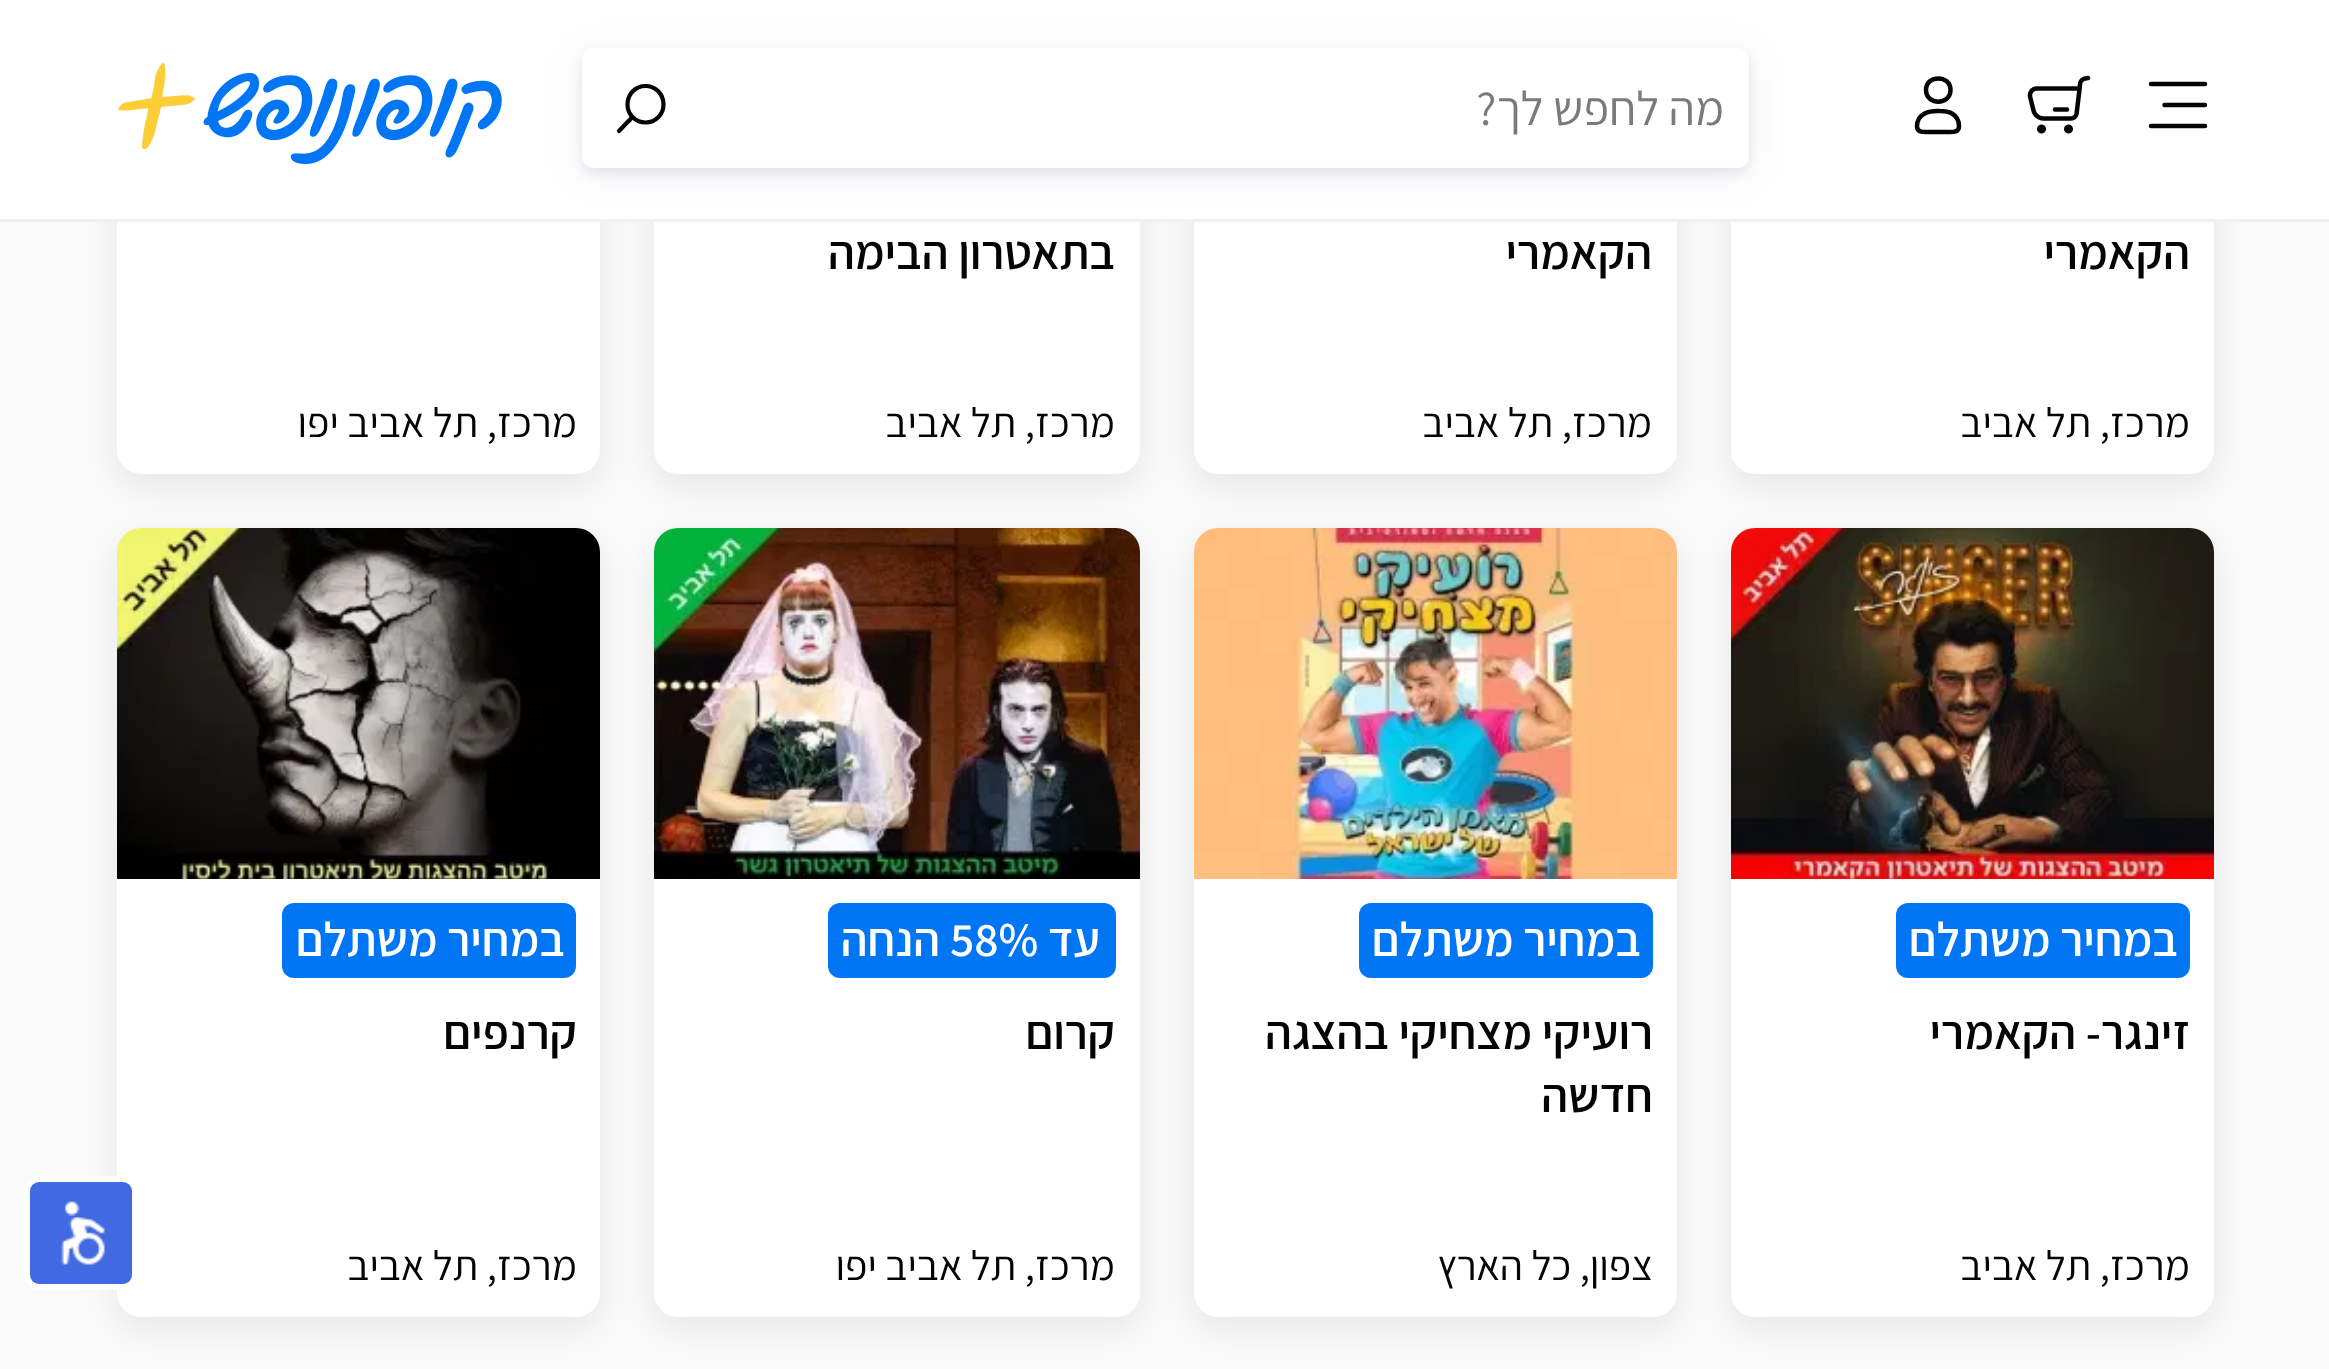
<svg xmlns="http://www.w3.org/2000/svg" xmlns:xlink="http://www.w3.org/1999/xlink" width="2329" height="1369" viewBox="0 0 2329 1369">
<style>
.cls-1{font:48px Assistant;direction:rtl;fill:#7a7a7a}
.cls-2{font:600 48px Assistant;direction:rtl;fill:#040403}
.cls-3{font:42px Assistant;direction:rtl;fill:#040403}
.cls-4{font:600 48px Assistant;direction:rtl;fill:#ffffff}
.cls-5{font:600 48px Assistant;fill:#ffffff}
</style>
<rect width="100%" height="100%" fill="#fafafa"/>
<rect fill="#000000" fill-opacity="0.08" filter="blur(18px)" x="1731" y="-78" width="483" height="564" rx="24"/>
<rect fill="#ffffff" x="1731" y="-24" width="483" height="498" rx="24"/>
<rect fill="#000000" fill-opacity="0.08" filter="blur(18px)" x="1194" y="-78" width="483" height="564" rx="24"/>
<rect fill="#ffffff" x="1194" y="-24" width="483" height="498" rx="24"/>
<rect fill="#000000" fill-opacity="0.08" filter="blur(18px)" x="654" y="-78" width="486" height="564" rx="24"/>
<rect fill="#ffffff" x="654" y="-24" width="486" height="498" rx="24"/>
<rect fill="#000000" fill-opacity="0.08" filter="blur(18px)" x="117" y="-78" width="483" height="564" rx="24"/>
<rect fill="#ffffff" x="117" y="-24" width="483" height="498" rx="24"/>
<rect fill="#ffffff" x="0" y="0" width="2329" height="219"/>
<rect fill="#f0eff4" x="0" y="219" width="2329" height="3"/>
<path fill="none" stroke="#040403" stroke-width="4.5" stroke-linecap="round" d="M2151 84H2205M2164.5 105H2205M2151 126H2205"/>
<image xlink:href="image0.png" x="2027" y="75" width="64" height="59"/>
<path fill="none" stroke="#040403" stroke-width="4.5" d="M1917 126.5C1917 113 1929.5 110.5 1940 111C1944 111 1948.5 111.5 1952 113.5C1956.5 116 1959 121 1959 126.5C1959 132.5 1952.5 132 1948.5 132H1927.5C1923.5 132 1917 132.5 1917 126.5ZM1950.5 90C1950.5 105.5 1926 105.5 1926 90C1926 74.5 1950.5 74.5 1950.5 90Z"/>
<image xlink:href="image1.png" x="118" y="63" width="384" height="101"/>
<rect fill="#18274b" fill-opacity="0.08" filter="blur(6px)" x="582" y="54" width="1167" height="120" rx="12"/>
<rect fill="#18274b" fill-opacity="0.08" filter="blur(18px)" x="582" y="54" width="1167" height="120" rx="12"/>
<rect fill="#ffffff" x="582" y="48" width="1167" height="120" rx="12"/>
<path fill="none" stroke="#040403" stroke-width="4.2" stroke-linecap="round" stroke-linejoin="round" d="M663.5 104.5C663.5 114.5 655.5 122.5 645.5 122.5C635.5 122.5 627.5 114.5 627.5 104.5C627.5 94 635.5 86 645.5 86C655.5 86 663.5 94 663.5 104.5ZM631 118.5L629 121M619 131L629 120.5"/>
<rect fill="#000000" fill-opacity="0.08" filter="blur(18px)" x="1731" y="540" width="483" height="789" rx="24"/>
<rect fill="#ffffff" x="1731" y="528" width="483" height="789" rx="24"/>
<rect fill="#000000" fill-opacity="0.08" filter="blur(18px)" x="1194" y="540" width="483" height="789" rx="24"/>
<image xlink:href="image2.png" x="1731" y="528" width="483" height="351"/>
<rect fill="#0076f5" x="1896" y="903" width="294" height="75" rx="12"/>
<rect fill="#ffffff" x="1194" y="528" width="483" height="789" rx="24"/>
<rect fill="#000000" fill-opacity="0.08" filter="blur(18px)" x="654" y="540" width="486" height="789" rx="24"/>
<image xlink:href="image3.png" x="1194" y="528" width="483" height="351"/>
<rect fill="#0076f5" x="1359" y="903" width="294" height="75" rx="12"/>
<rect fill="#ffffff" x="654" y="528" width="486" height="789" rx="24"/>
<rect fill="#000000" fill-opacity="0.08" filter="blur(18px)" x="117" y="540" width="483" height="789" rx="24"/>
<image xlink:href="image4.png" x="654" y="528" width="486" height="351"/>
<rect fill="#0076f5" x="828" y="903" width="288" height="75" rx="12"/>
<rect fill="#ffffff" x="117" y="528" width="483" height="789" rx="24"/>
<image xlink:href="image5.png" x="117" y="528" width="483" height="351"/>
<rect fill="#0076f5" x="282" y="903" width="294" height="75" rx="12"/>
<rect fill="none" stroke="#ffffff" stroke-width="6" x="27" y="1179" width="108" height="108" rx="12"/>
<rect fill="#4169e1" x="30" y="1182" width="102" height="102" rx="9"/>
<image xlink:href="image6.png" x="61" y="1201" width="44" height="64"/>
<text class="cls-1" x="1724" y="125">מה לחפש לך?</text>
<text class="cls-2" x="2190" y="269">הקאמרי</text>
<text class="cls-3" x="2190" y="437">מרכז, תל אביב</text>
<text class="cls-2" x="1652" y="269">הקאמרי</text>
<text class="cls-3" x="1652" y="437">מרכז, תל אביב</text>
<text class="cls-2" x="1115" y="269">בתאטרון הבימה</text>
<text class="cls-3" x="1115" y="437">מרכז, תל אביב</text>
<text class="cls-3" x="577" y="437">מרכז, תל אביב יפו</text>
<text class="cls-4" x="2178" y="956">במחיר משתלם</text>
<text class="cls-2" x="2190" y="1049">זינגר- הקאמרי</text>
<text class="cls-3" x="2190" y="1280">מרכז, תל אביב</text>
<text class="cls-4" x="1641" y="956">במחיר משתלם</text>
<text class="cls-2"><tspan x="1653" y="1049">רועיקי מצחיקי בהצגה</tspan><tspan x="1653" y="1112">חדשה</tspan></text>
<text class="cls-3" x="1653" y="1280">צפון, כל הארץ</text>
<text class="cls-4" x="1100" y="956">עד</text>
<text class="cls-5" x="950" y="956">58%</text>
<text class="cls-4" x="940" y="956">הנחה</text>
<text class="cls-2" x="1115" y="1049">קרום</text>
<text class="cls-3" x="1115" y="1280">מרכז, תל אביב יפו</text>
<text class="cls-4" x="565" y="956">במחיר משתלם</text>
<text class="cls-2" x="577" y="1049">קרנפים</text>
<text class="cls-3" x="577" y="1280">מרכז, תל אביב</text>
</svg>
